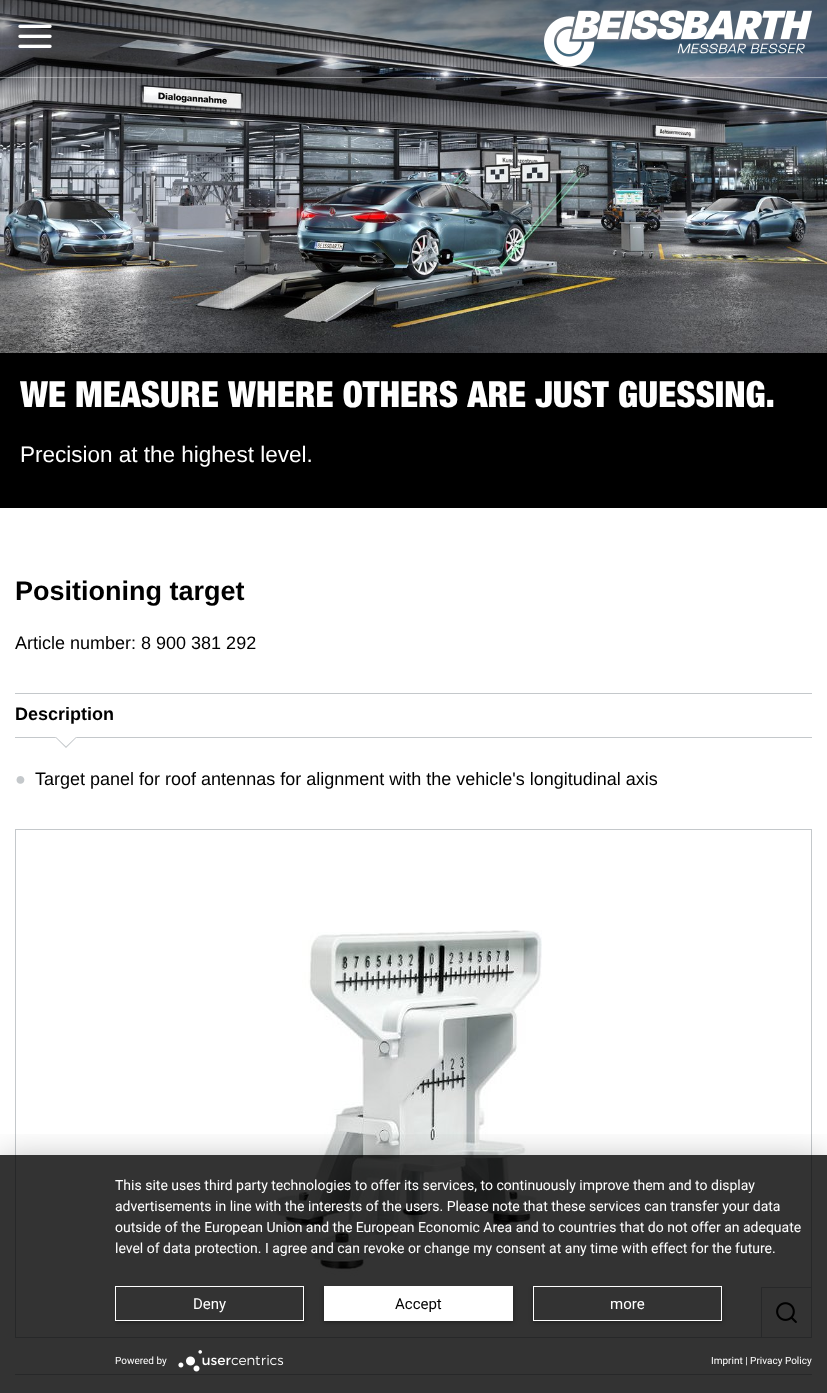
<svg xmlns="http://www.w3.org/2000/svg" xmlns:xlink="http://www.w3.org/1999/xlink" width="827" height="1393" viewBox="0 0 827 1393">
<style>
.cls-1{font:36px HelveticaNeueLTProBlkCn;fill:#ffffff}
.cls-2{font:22.5px Liberation Sans;fill:#ffffff}
.cls-3{font:bold 27px Liberation Sans;fill:#000000}
.cls-4{font:18px Liberation Sans;fill:#000000}
.cls-5{font:bold 18px Liberation Sans;fill:#000000}
.cls-6{font:bold 18px Liberation Sans;fill:#c4c8cb}
.cls-7{font:14px Roboto;fill:#ffffff}
.cls-8{font:15px Roboto;fill:#ffffff}
.cls-9{font:15px Roboto;fill:#000000}
.cls-10{font:10px Roboto;fill:#ffffff}
</style>
<defs>
<clipPath id="clip1"><rect x="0" y="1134" width="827" height="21"/></clipPath>
<clipPath id="clip2"><rect x="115" y="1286" width="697" height="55"/></clipPath>
<clipPath id="clip3"><path d="M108 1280H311V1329H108ZM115 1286H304V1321H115Z" clip-rule="evenodd"/></clipPath>
<clipPath id="clip4"><path d="M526 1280H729V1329H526ZM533 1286H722V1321H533Z" clip-rule="evenodd"/></clipPath>
</defs>
<rect width="100%" height="100%" fill="#ffffff"/>
<image xlink:href="image2.png" x="0" y="0" width="827" height="353"/>
<image xlink:href="image0.png" x="18" y="24" width="34" height="24"/>
<image xlink:href="image1.png" x="544" y="10" width="268" height="57"/>
<rect fill="#ffffff" fill-opacity="0.4" x="0" y="77" width="827" height="1"/>
<rect fill="#000000" x="0" y="353" width="827" height="155"/>
<rect fill="#c4c8cb" x="15" y="693" width="797" height="1"/>
<rect fill="#c4c8cb" x="15" y="737" width="797" height="1"/>
<path fill="#ffffff" d="M66 727L76.5 737.5L66 748L55.5 737.5Z"/>
<path fill="#c4c8cb" d="M76.5 737.5L66 748V746.5L76 737ZM66 748L55.5 737.5L56 737L66 746.5Z"/>
<rect fill="none" stroke="#c4c8cb" x="15.5" y="829.5" width="796" height="508"/>
<image xlink:href="image3.png" x="276" y="930" width="266" height="346"/>
<path fill="#c4c8cb" d="M761 1287H811V1288H762Z"/>
<path fill="#6b757c" fill-opacity="0.4" d="M761 1337V1287L762 1288V1337Z"/>
<image xlink:href="image4.png" x="776" y="1302" width="21" height="21"/>
<rect fill="#c4c8cb" x="15" y="1374" width="797" height="1"/>
<g clip-path="url(#clip1)">
<rect fill="#000000" fill-opacity="0.3" filter="blur(18px)" x="0" y="1161" width="827" height="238"/>
</g>
<rect fill="#000000" fill-opacity="0.8" x="0" y="1155" width="827" height="238"/>
<g clip-path="url(#clip2)">
<g clip-path="url(#clip3)">
<rect fill="#000000" fill-opacity="0.4" filter="blur(2px)" x="115" y="1287" width="189" height="35"/>
</g>
</g>
<rect fill="none" stroke="#ffffff" x="115.5" y="1286.5" width="188" height="34"/>
<g clip-path="url(#clip2)">
<rect fill="#000000" fill-opacity="0.4" filter="blur(2px)" x="324" y="1287" width="189" height="35"/>
</g>
<rect fill="#ffffff" x="324" y="1286" width="189" height="35"/>
<g clip-path="url(#clip2)">
<g clip-path="url(#clip4)">
<rect fill="#000000" fill-opacity="0.4" filter="blur(2px)" x="533" y="1287" width="189" height="35"/>
</g>
</g>
<rect fill="none" stroke="#ffffff" x="533.5" y="1286.5" width="188" height="34"/>
<image xlink:href="image5.png" x="178" y="1350" width="106" height="22"/>
<text class="cls-1" x="20" y="407">WE MEASURE WHERE OTHERS ARE JUST GUESSING.</text>
<text class="cls-2" x="20" y="462">Precision at the highest level.</text>
<text class="cls-3" x="15" y="600">Positioning target</text>
<text class="cls-4" x="15" y="649">Article number: 8 900 381 292</text>
<text class="cls-5" x="15" y="720">Description</text>
<text class="cls-6" x="15" y="785">●</text>
<text class="cls-4" x="35" y="785">Target panel for roof antennas for alignment with the vehicle's longitudinal axis</text>
<text class="cls-7"><tspan x="115" y="1190">This site uses third party technologies to offer its services, to continuously improve them and to display</tspan><tspan x="115" y="1211">advertisements in line with the interests of the users. Please note that these services can transfer your data</tspan><tspan x="115" y="1232">outside of the European Union and the European Economic Area and to countries that do not offer an adequate</tspan><tspan x="115" y="1253">level of data protection. I agree and can revoke or change my consent at any time with effect for the future.</tspan></text>
<text class="cls-8" x="193" y="1309">Deny</text>
<text class="cls-9" x="395" y="1309">Accept</text>
<text class="cls-8" x="610" y="1309">more</text>
<text class="cls-10" x="115" y="1364">Powered by</text>
<text class="cls-10" x="711" y="1364">Imprint | Privacy Policy</text>
</svg>
